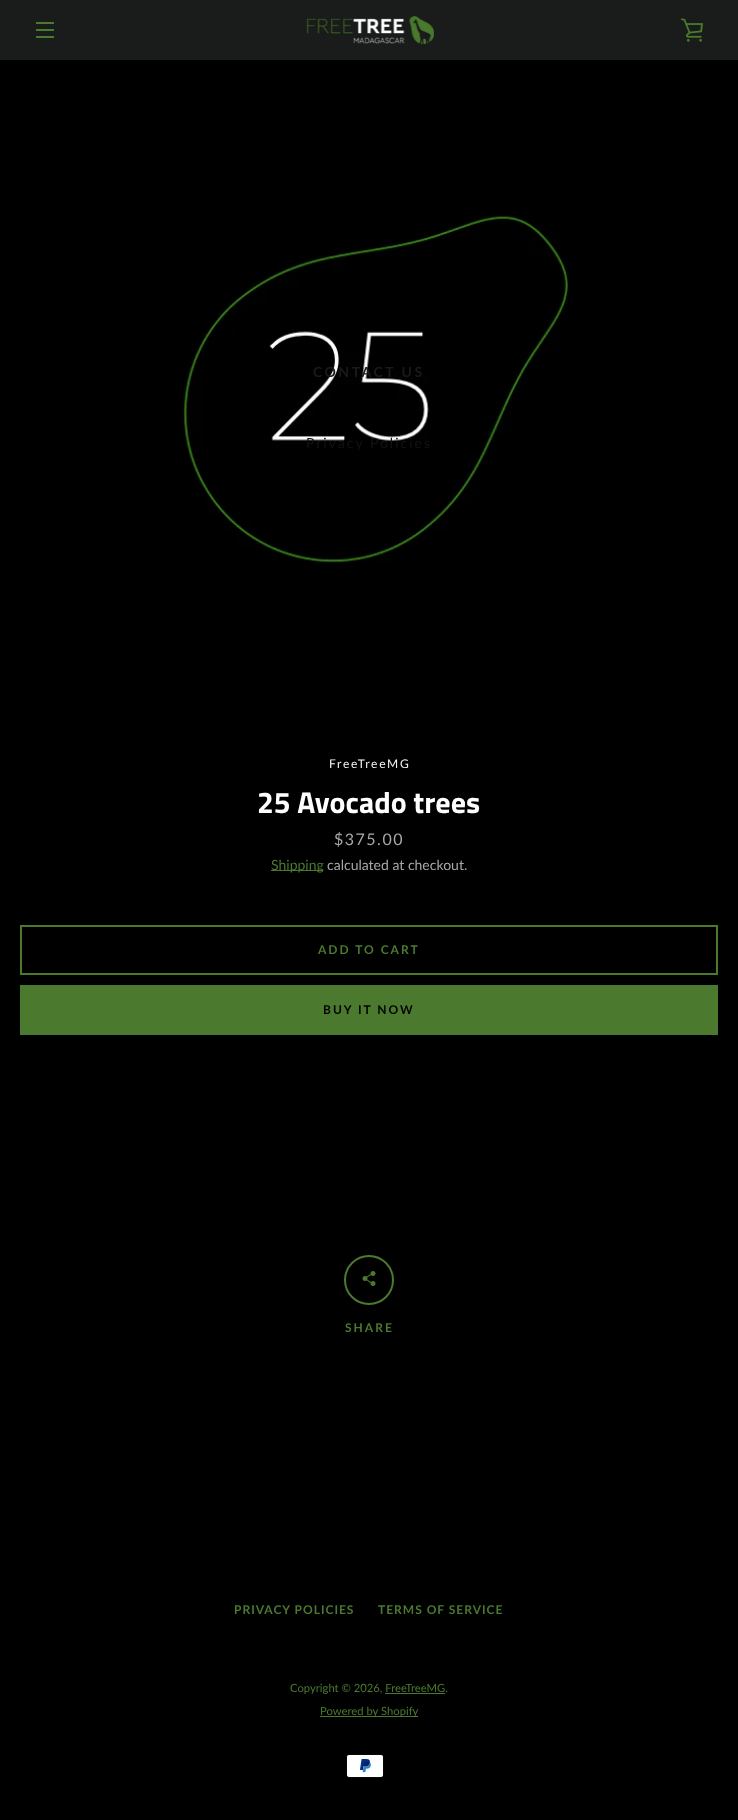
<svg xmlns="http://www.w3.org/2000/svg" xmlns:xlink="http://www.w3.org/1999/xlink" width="738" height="1820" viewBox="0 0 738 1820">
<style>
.cls-1{font:bold 14px Lato;letter-spacing:2.5px;fill:#1a1a1a}
.cls-2{font:14px Lato;letter-spacing:2px;fill:#131313}
.cls-3{font:12px Lato;letter-spacing:1.75px;fill:#f5f5f5}
.cls-4{font:bold 30px Titillium Web;fill:#ffffff}
.cls-5{font:16px Lato;letter-spacing:1.5px;fill:#a9a9a9}
.cls-6{font:14px Lato;fill:#4b7a2e}
.cls-7{font:14px Lato;fill:#a9a9a9}
.cls-8{font:bold 12px Lato;letter-spacing:2px;fill:#4b7a2e}
.cls-9{font:bold 12px Lato;letter-spacing:2px;fill:#000000}
.cls-10{font:bold 12px Lato;letter-spacing:1px;fill:#4b7a2e}
.cls-11{font:11.25px Lato;fill:#4b7a2e}
</style>
<rect width="100%" height="100%" fill="#000000"/>
<rect fill="#191c1b" x="0" y="0" width="738" height="60"/>
<image xlink:href="image0.png" x="306" y="15" width="128" height="30"/>
<image xlink:href="image1.png" x="681" y="18" width="22" height="24"/>
<rect fill="#4b7a2e" x="36" y="22" width="18" height="2"/>
<rect fill="#4b7a2e" x="36" y="29" width="18" height="2"/>
<rect fill="#4b7a2e" x="36" y="36" width="18" height="2"/>
<image xlink:href="image2.png" x="180" y="215" width="389" height="349"/>
<rect fill="#4b7a2e" x="271" y="870" width="52" height="1"/>
<rect fill="none" stroke="#4b7a2e" stroke-width="2" x="21" y="926" width="696" height="48"/>
<rect fill="#4b7a2e" x="20" y="985" width="698" height="50"/>
<circle fill="none" stroke="#4b7a2e" stroke-width="2" cx="369" cy="1280" r="24"/>
<image xlink:href="image3.png" x="362" y="1271" width="14" height="15"/>
<rect fill="#4b7a2e" x="385" y="1693" width="60" height="1"/>
<rect fill="#4b7a2e" x="320" y="1716" width="98" height="1"/>
<image xlink:href="image4.png" x="346" y="1754" width="38" height="24"/>
<text class="cls-1" x="313" y="377">CONTACT US</text>
<text class="cls-2" x="306" y="448">Privacy Policies</text>
<text class="cls-3" x="329" y="768">FreeTreeMG</text>
<text class="cls-4" x="257" y="813">25 Avocado trees</text>
<text class="cls-5" x="334" y="845">$375.00</text>
<text class="cls-6" x="271" y="870">Shipping</text>
<text class="cls-7" x="327" y="870">calculated at checkout.</text>
<text class="cls-8" x="318" y="954">ADD TO CART</text>
<text class="cls-9" x="323" y="1014">BUY IT NOW</text>
<text class="cls-8" x="345" y="1332">SHARE</text>
<text class="cls-10" x="234" y="1614">PRIVACY POLICIES</text>
<text class="cls-10" x="378" y="1614">TERMS OF SERVICE</text>
<text class="cls-11" x="290" y="1692">Copyright © 2026, FreeTreeMG.</text>
<text class="cls-11" x="320" y="1715">Powered by Shopify</text>
</svg>
